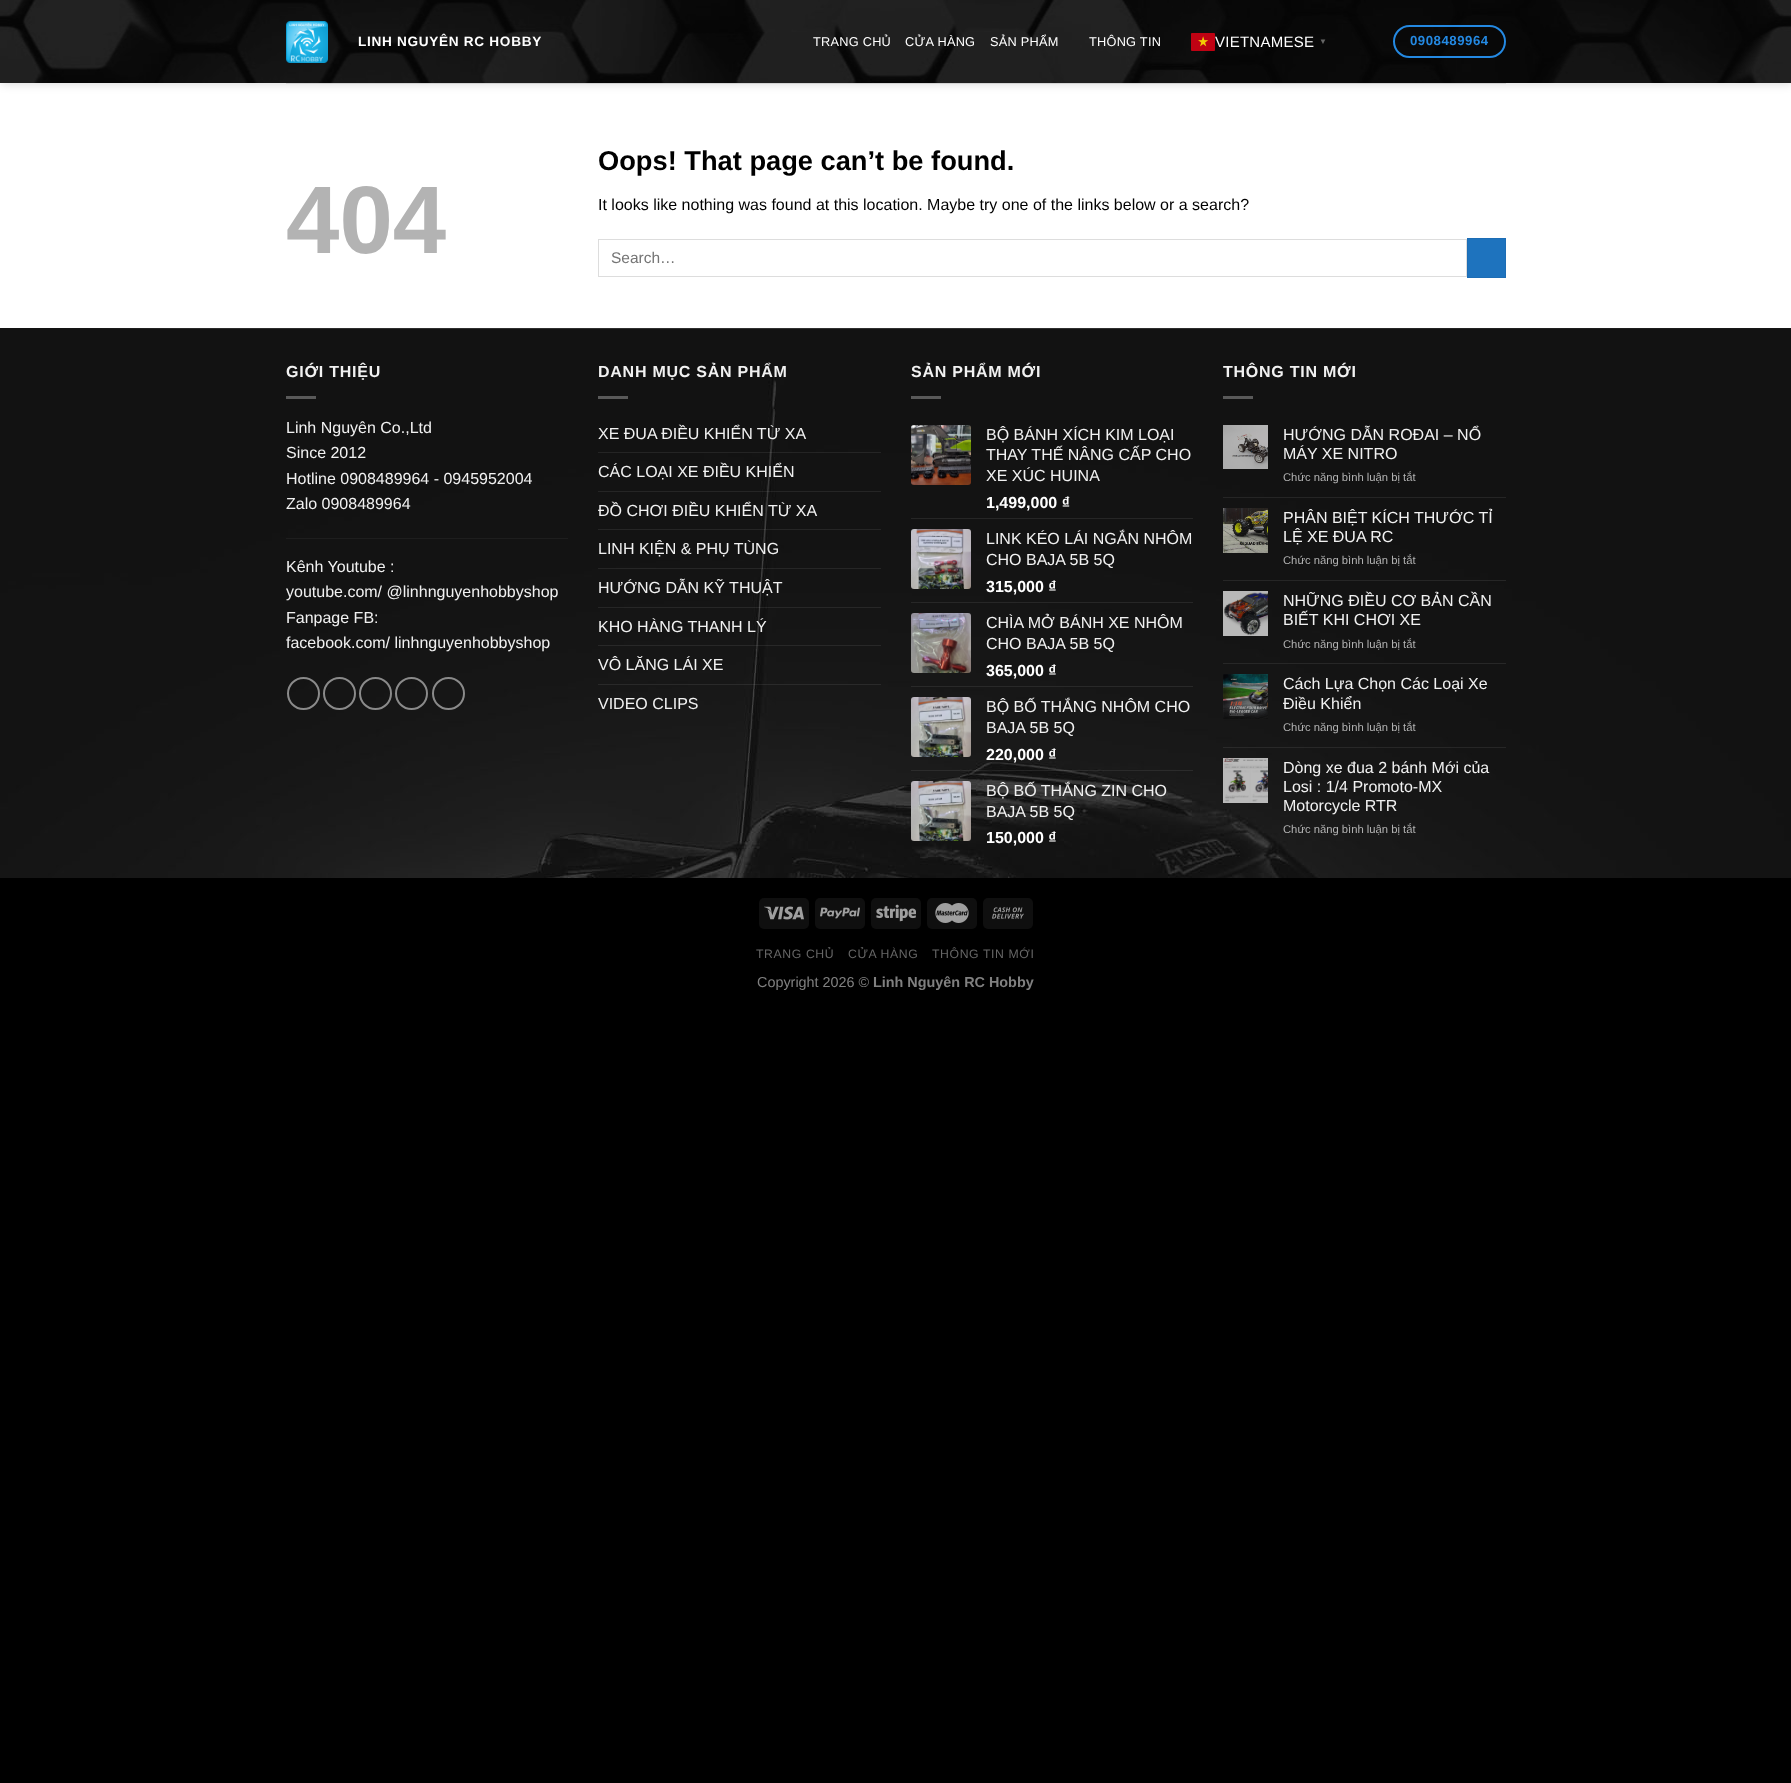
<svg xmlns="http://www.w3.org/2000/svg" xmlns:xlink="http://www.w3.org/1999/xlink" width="1791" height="1783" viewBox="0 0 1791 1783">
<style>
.cls-1{font:bold 13.6px Liberation Sans;letter-spacing:0.7px;fill:#ffffff}
.cls-2{font:12.75px Liberation Sans;letter-spacing:0.25px;fill:#ffffff}
.cls-3{font:15px Liberation Sans;letter-spacing:0.25px;fill:#ffffff}
.cls-4{font:bold 8px Liberation Sans;letter-spacing:0.25px;fill:#666666}
.cls-5{font:bold 13.25px Liberation Sans;letter-spacing:0.5px;fill:#2489e2}
.cls-6{font:bold 96px Liberation Sans;fill:#b3b3b3}
.cls-7{font:bold 27.25px Liberation Sans;fill:#000000}
.cls-8{font:16px Liberation Sans;fill:#000000}
.cls-9{font:15.5px Liberation Sans;fill:#757575}
.cls-10{font:bold 16px Liberation Sans;letter-spacing:0.75px;fill:#f1f1f1}
.cls-11{font:16px Liberation Sans;fill:#f1f1f1}
.cls-12{font:bold 16px Liberation Sans;fill:#ffffff}
.cls-13{font:11.25px Liberation Sans;fill:#b3b3b3}
.cls-14{font:12.25px Liberation Sans;letter-spacing:0.6px;fill:#666666}
.cls-15{font:14.4px Liberation Sans;fill:#808080}
.cls-16{font:bold 14.4px Liberation Sans;fill:#808080}
</style>
<rect width="100%" height="100%" fill="#000000"/>
<rect fill="#ffffff" x="0" y="83" width="1791" height="245"/>
<rect fill="#000000" fill-opacity="0.15" filter="blur(5px)" x="1" y="1" width="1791" height="83"/>
<image xlink:href="image0.png" x="0" y="0" width="1791" height="83"/>
<image xlink:href="image1.png" x="286" y="21" width="42" height="42"/>
<image xlink:href="image2.png" x="1191" y="33" width="24" height="18"/>
<rect fill="none" stroke="#2489e2" stroke-width="2" x="1394" y="26" width="111" height="31" rx="15.5"/>
<rect fill="#d3d3d3" x="286" y="83" width="1220" height="1"/>
<rect fill="none" stroke="#dddddd" x="598.5" y="239.5" width="868" height="37"/>
<rect fill="#1e73be" stroke="#1d6db5" x="1467.5" y="238.5" width="38" height="39"/>
<image xlink:href="image3.png" x="0" y="328" width="1791" height="550"/>
<rect fill="#595959" x="286" y="396" width="30" height="3"/>
<rect fill="#1e1e1e" x="286" y="538" width="282" height="1"/>
<circle fill="none" stroke="#8a8a8a" stroke-width="2" cx="303.5" cy="693.5" r="15.5"/>
<circle fill="none" stroke="#8a8a8a" stroke-width="2" cx="339.5" cy="693.5" r="15.5"/>
<circle fill="none" stroke="#8a8a8a" stroke-width="2" cx="375.5" cy="693.5" r="15.5"/>
<circle fill="none" stroke="#8a8a8a" stroke-width="2" cx="411.5" cy="693.5" r="15.5"/>
<circle fill="none" stroke="#8a8a8a" stroke-width="2" cx="448.5" cy="693.5" r="15.5"/>
<rect fill="#595959" x="598" y="396" width="30" height="3"/>
<rect fill="#ffffff" fill-opacity="0.08" x="598" y="452" width="283" height="1"/>
<rect fill="#ffffff" fill-opacity="0.08" x="598" y="491" width="283" height="1"/>
<rect fill="#ffffff" fill-opacity="0.08" x="598" y="529" width="283" height="1"/>
<rect fill="#ffffff" fill-opacity="0.08" x="598" y="568" width="283" height="1"/>
<rect fill="#ffffff" fill-opacity="0.08" x="598" y="607" width="283" height="1"/>
<rect fill="#ffffff" fill-opacity="0.08" x="598" y="645" width="283" height="1"/>
<rect fill="#ffffff" fill-opacity="0.08" x="598" y="684" width="283" height="1"/>
<rect fill="#595959" x="911" y="396" width="30" height="3"/>
<image xlink:href="image4.png" x="911" y="425" width="60" height="60"/>
<rect fill="#262626" x="911" y="518" width="282" height="1"/>
<image xlink:href="image5.png" x="911" y="529" width="60" height="60"/>
<rect fill="#272727" x="911" y="602" width="282" height="1"/>
<image xlink:href="image6.png" x="911" y="613" width="60" height="60"/>
<rect fill="#292929" x="911" y="686" width="282" height="1"/>
<image xlink:href="image7.png" x="911" y="697" width="60" height="60"/>
<rect fill="#ffffff" fill-opacity="0.08" x="911" y="770" width="282" height="1"/>
<image xlink:href="image8.png" x="911" y="781" width="60" height="60"/>
<rect fill="#595959" x="1223" y="396" width="30" height="3"/>
<image xlink:href="image9.png" x="1223" y="425" width="45" height="44"/>
<rect fill="#252525" x="1223" y="497" width="283" height="1"/>
<image xlink:href="image10.png" x="1223" y="508" width="45" height="45"/>
<rect fill="#262626" x="1223" y="580" width="283" height="1"/>
<image xlink:href="image11.png" x="1223" y="591" width="45" height="45"/>
<rect fill="#272727" x="1223" y="663" width="283" height="1"/>
<image xlink:href="image12.png" x="1223" y="674" width="45" height="45"/>
<rect fill="#ffffff" fill-opacity="0.08" x="1223" y="747" width="283" height="1"/>
<image xlink:href="image13.png" x="1223" y="758" width="45" height="45"/>
<rect fill="#0f0f0f" x="759" y="898" width="50" height="31" rx="5"/>
<image xlink:href="image14.png" x="764" y="906" width="40" height="14"/>
<rect fill="#0f0f0f" x="815" y="898" width="50" height="31" rx="5"/>
<image xlink:href="image15.png" x="820" y="907" width="40" height="12"/>
<rect fill="#0f0f0f" x="871" y="898" width="50" height="31" rx="5"/>
<image xlink:href="image16.png" x="876" y="904" width="40" height="18"/>
<rect fill="#0f0f0f" x="927" y="898" width="50" height="31" rx="5"/>
<image xlink:href="image17.png" x="935" y="903" width="34" height="20"/>
<rect fill="#0f0f0f" x="983" y="898" width="50" height="31" rx="5"/>
<image xlink:href="image18.png" x="992" y="907" width="32" height="12"/>
<text class="cls-1" x="358" y="46">LINH NGUYÊN RC HOBBY</text>
<text class="cls-2" x="813" y="46">TRANG CHỦ</text>
<text class="cls-2" x="905" y="46">CỬA HÀNG</text>
<text class="cls-2" x="990" y="46">SẢN PHẨM</text>
<text class="cls-2" x="1089" y="46">THÔNG TIN</text>
<text class="cls-3" x="1215" y="47">VIETNAMESE</text>
<text class="cls-4" x="1319" y="44">▼</text>
<text class="cls-5" x="1410" y="45">0908489964</text>
<text class="cls-6" x="286" y="253">404</text>
<text class="cls-7" x="598" y="170">Oops! That page can’t be found.</text>
<text class="cls-8" x="598" y="210">It looks like nothing was found at this location. Maybe try one of the links below or a search?</text>
<text class="cls-9" x="611" y="263">Search…</text>
<text class="cls-10" x="286" y="377">GIỚI THIỆU</text>
<text class="cls-11"><tspan x="286" y="433">Linh Nguyên Co.,Ltd</tspan><tspan x="286" y="458">Since 2012</tspan><tspan x="286" y="484">Hotline 0908489964 - 0945952004</tspan><tspan x="286" y="509">Zalo 0908489964</tspan></text>
<text class="cls-11"><tspan x="286" y="572">Kênh Youtube :</tspan><tspan x="286" y="597">youtube.com/ @linhnguyenhobbyshop</tspan><tspan x="286" y="623">Fanpage FB:</tspan><tspan x="286" y="648">facebook.com/ linhnguyenhobbyshop</tspan></text>
<text class="cls-10" x="598" y="377">DANH MỤC SẢN PHẨM</text>
<text class="cls-11" x="598" y="439">XE ĐUA ĐIỀU KHIỂN TỪ XA</text>
<text class="cls-11" x="598" y="477">CÁC LOẠI XE ĐIỀU KHIỂN</text>
<text class="cls-11" x="598" y="516">ĐỒ CHƠI ĐIỀU KHIỂN TỪ XA</text>
<text class="cls-11" x="598" y="554">LINH KIỆN &amp; PHỤ TÙNG</text>
<text class="cls-11" x="598" y="593">HƯỚNG DẪN KỸ THUẬT</text>
<text class="cls-11" x="598" y="632">KHO HÀNG THANH LÝ</text>
<text class="cls-11" x="598" y="670">VÔ LĂNG LÁI XE</text>
<text class="cls-11" x="598" y="709">VIDEO CLIPS</text>
<text class="cls-10" x="911" y="377">SẢN PHẨM MỚI</text>
<text class="cls-11"><tspan x="986" y="440">BỘ BÁNH XÍCH KIM LOẠI</tspan><tspan x="986" y="460">THAY THẾ NÂNG CẤP CHO</tspan><tspan x="986" y="481">XE XÚC HUINA</tspan></text>
<text class="cls-12" x="986" y="508">1,499,000 ₫</text>
<text class="cls-11"><tspan x="986" y="544">LINK KÉO LÁI NGẮN NHÔM</tspan><tspan x="986" y="565">CHO BAJA 5B 5Q</tspan></text>
<text class="cls-12" x="986" y="592">315,000 ₫</text>
<text class="cls-11"><tspan x="986" y="628">CHÌA MỞ BÁNH XE NHÔM</tspan><tspan x="986" y="649">CHO BAJA 5B 5Q</tspan></text>
<text class="cls-12" x="986" y="676">365,000 ₫</text>
<text class="cls-11"><tspan x="986" y="712">BỘ BỐ THẮNG NHÔM CHO</tspan><tspan x="986" y="733">BAJA 5B 5Q</tspan></text>
<text class="cls-12" x="986" y="760">220,000 ₫</text>
<text class="cls-11"><tspan x="986" y="796">BỘ BỐ THẮNG ZIN CHO</tspan><tspan x="986" y="817">BAJA 5B 5Q</tspan></text>
<text class="cls-12" x="986" y="843">150,000 ₫</text>
<text class="cls-10" x="1223" y="377">THÔNG TIN MỚI</text>
<text class="cls-11"><tspan x="1283" y="440">HƯỚNG DẪN ROĐAI – NỔ</tspan><tspan x="1283" y="459">MÁY XE NITRO</tspan></text>
<text class="cls-13" x="1283" y="481">Chức năng bình luận bị tắt</text>
<text class="cls-11"><tspan x="1283" y="523">PHÂN BIỆT KÍCH THƯỚC TỈ</tspan><tspan x="1283" y="542">LỆ XE ĐUA RC</tspan></text>
<text class="cls-13" x="1283" y="564">Chức năng bình luận bị tắt</text>
<text class="cls-11"><tspan x="1283" y="606">NHỮNG ĐIỀU CƠ BẢN CẦN</tspan><tspan x="1283" y="625">BIẾT KHI CHƠI XE</tspan></text>
<text class="cls-13" x="1283" y="648">Chức năng bình luận bị tắt</text>
<text class="cls-11"><tspan x="1283" y="689">Cách Lựa Chọn Các Loại Xe</tspan><tspan x="1283" y="709">Điều Khiển</tspan></text>
<text class="cls-13" x="1283" y="731">Chức năng bình luận bị tắt</text>
<text class="cls-11"><tspan x="1283" y="773">Dòng xe đua 2 bánh Mới của</tspan><tspan x="1283" y="792">Losi : 1/4 Promoto-MX</tspan><tspan x="1283" y="811">Motorcycle RTR</tspan></text>
<text class="cls-13" x="1283" y="833">Chức năng bình luận bị tắt</text>
<text class="cls-14" x="756" y="958">TRANG CHỦ</text>
<text class="cls-14" x="848" y="958">CỬA HÀNG</text>
<text class="cls-14" x="932" y="958">THÔNG TIN MỚI</text>
<text class="cls-15" x="757" y="987">Copyright 2026 ©</text>
<text class="cls-16" x="873" y="987">Linh Nguyên RC Hobby</text>
</svg>
